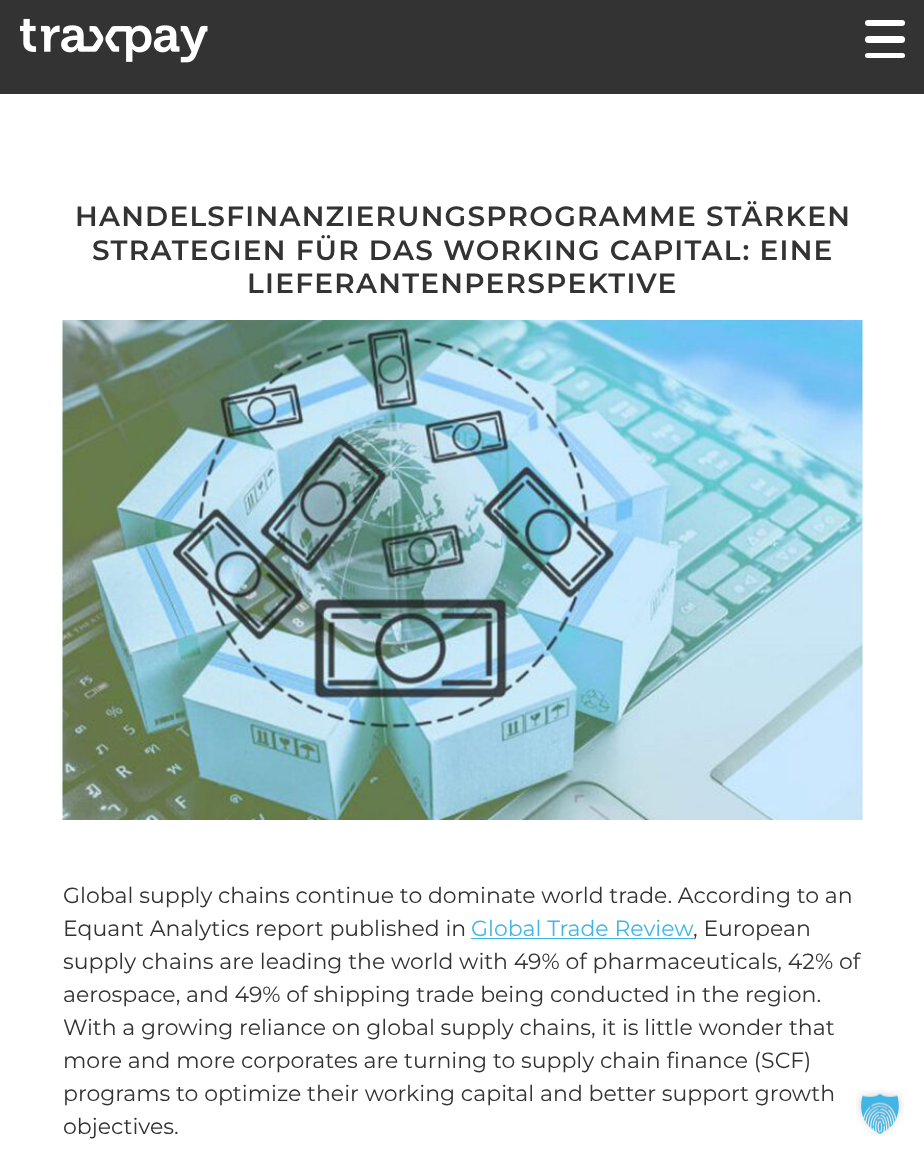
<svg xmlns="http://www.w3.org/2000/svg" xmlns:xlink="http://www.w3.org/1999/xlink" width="924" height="1158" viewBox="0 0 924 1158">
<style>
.cls-1{font:600 28px Montserrat;letter-spacing:1.25px;fill:#333333}
.cls-2{font:22px Montserrat;fill:#333333}
.cls-3{font:22px Montserrat;fill:#41b6e6}
</style>
<rect width="100%" height="100%" fill="#ffffff"/>
<rect fill="#333333" x="0" y="0" width="924" height="94"/>
<image xlink:href="image0.png" x="20" y="18" width="188" height="45"/>
<rect fill="#ffffff" x="865" y="36" width="40" height="7" rx="3.5"/>
<rect fill="#ffffff" x="865" y="20" width="40" height="6" rx="3"/>
<rect fill="#ffffff" x="865" y="53" width="40" height="5" rx="2.5"/>
<image xlink:href="image1.png" x="62" y="320" width="801" height="500"/>
<rect fill="#41b6e6" x="471" y="938" width="223" height="1"/>
<image xlink:href="image2.png" x="856" y="1090" width="48" height="46"/>
<text class="cls-1" x="75" y="226">HANDELSFINANZIERUNGSPROGRAMME STÄRKEN</text>
<text class="cls-1" x="92" y="260">STRATEGIEN FÜR DAS WORKING CAPITAL: EINE</text>
<text class="cls-1" x="247" y="293">LIEFERANTENPERSPEKTIVE</text>
<text class="cls-2"><tspan x="63" y="903">Global supply chains continue to dominate world trade. According to an</tspan><tspan x="63" y="936">Equant Analytics report published in</tspan></text>
<text class="cls-3" x="471" y="936">Global Trade Review</text>
<text class="cls-2" x="693" y="936">, European</text>
<text class="cls-2"><tspan x="63" y="969">supply chains are leading the world with 49% of pharmaceuticals, 42% of</tspan><tspan x="63" y="1002">aerospace, and 49% of shipping trade being conducted in the region.</tspan><tspan x="63" y="1035">With a growing reliance on global supply chains, it is little wonder that</tspan><tspan x="63" y="1068">more and more corporates are turning to supply chain finance (SCF)</tspan><tspan x="63" y="1101">programs to optimize their working capital and better support growth</tspan><tspan x="63" y="1134">objectives.</tspan></text>
</svg>
